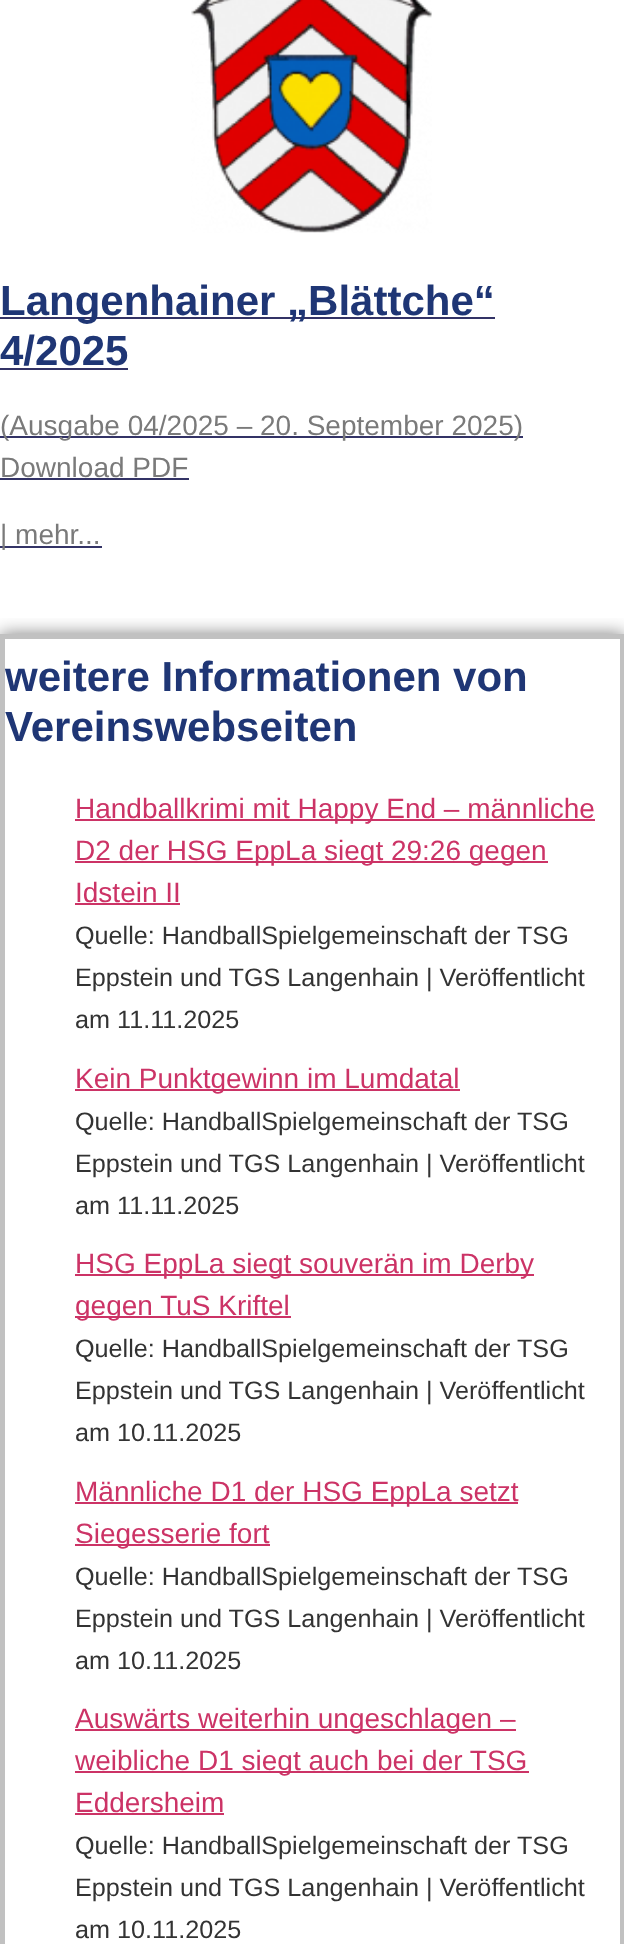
<svg xmlns="http://www.w3.org/2000/svg" xmlns:xlink="http://www.w3.org/1999/xlink" width="624" height="1944" viewBox="0 0 624 1944">
<style>
.cls-1{font:bold 42px Liberation Sans;fill:#1f3675}
.cls-2{font:28px Liberation Sans;fill:#7a7a7a}
.cls-3{font:28px Liberation Sans;fill:#cc3366}
.cls-4{font:25.2px Liberation Sans;fill:#333333}
</style>
<defs>
<clipPath id="clip1"><rect x="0" y="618" width="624" height="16"/></clipPath>
</defs>
<rect width="100%" height="100%" fill="#ffffff"/>
<image xlink:href="image0.png" x="191" y="0" width="241" height="233"/>
<rect fill="#333366" x="0" y="317" width="495" height="2"/>
<rect fill="#333366" x="0" y="368" width="128" height="2"/>
<rect fill="#333366" x="0" y="436" width="523" height="2"/>
<rect fill="#333366" x="0" y="478" width="189" height="2"/>
<rect fill="#333366" x="0" y="546" width="102" height="2"/>
<g clip-path="url(#clip1)">
<rect fill="#000000" fill-opacity="0.5" filter="blur(9px)" x="0" y="634" width="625" height="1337"/>
</g>
<rect fill="none" stroke="#c1c1c1" stroke-width="5" x="2.5" y="636.5" width="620" height="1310"/>
<rect fill="#cc3366" x="75" y="819" width="520" height="2"/>
<rect fill="#cc3366" x="75" y="861" width="473" height="2"/>
<rect fill="#cc3366" x="75" y="903" width="105" height="2"/>
<rect fill="#cc3366" x="75" y="1089" width="385" height="2"/>
<rect fill="#cc3366" x="75" y="1274" width="459" height="2"/>
<rect fill="#cc3366" x="75" y="1316" width="216" height="2"/>
<rect fill="#cc3366" x="75" y="1502" width="443" height="2"/>
<rect fill="#cc3366" x="75" y="1544" width="195" height="2"/>
<rect fill="#cc3366" x="75" y="1729" width="441" height="2"/>
<rect fill="#cc3366" x="75" y="1771" width="454" height="2"/>
<rect fill="#cc3366" x="75" y="1813" width="149" height="2"/>
<text class="cls-1"><tspan x="0" y="315">Langenhainer „Blättche“</tspan><tspan x="0" y="365">4/2025</tspan></text>
<text class="cls-2"><tspan x="0" y="435">(Ausgabe 04/2025 – 20. September 2025)</tspan><tspan x="0" y="477">Download PDF</tspan></text>
<text class="cls-2" x="0" y="544">| mehr...</text>
<text class="cls-1"><tspan x="5" y="691">weitere Informationen von</tspan><tspan x="5" y="741">Vereinswebseiten</tspan></text>
<text class="cls-3"><tspan x="75" y="818">Handballkrimi mit Happy End – männliche</tspan><tspan x="75" y="860">D2 der HSG EppLa siegt 29:26 gegen</tspan><tspan x="75" y="902">Idstein II</tspan></text>
<text class="cls-4"><tspan x="75" y="944">Quelle: HandballSpielgemeinschaft der TSG</tspan><tspan x="75" y="986">Eppstein und TGS Langenhain | Veröffentlicht</tspan><tspan x="75" y="1028">am 11.11.2025</tspan></text>
<text class="cls-3" x="75" y="1088">Kein Punktgewinn im Lumdatal</text>
<text class="cls-4"><tspan x="75" y="1130">Quelle: HandballSpielgemeinschaft der TSG</tspan><tspan x="75" y="1172">Eppstein und TGS Langenhain | Veröffentlicht</tspan><tspan x="75" y="1214">am 11.11.2025</tspan></text>
<text class="cls-3"><tspan x="75" y="1273">HSG EppLa siegt souverän im Derby</tspan><tspan x="75" y="1315">gegen TuS Kriftel</tspan></text>
<text class="cls-4"><tspan x="75" y="1357">Quelle: HandballSpielgemeinschaft der TSG</tspan><tspan x="75" y="1399">Eppstein und TGS Langenhain | Veröffentlicht</tspan><tspan x="75" y="1441">am 10.11.2025</tspan></text>
<text class="cls-3"><tspan x="75" y="1501">Männliche D1 der HSG EppLa setzt</tspan><tspan x="75" y="1543">Siegesserie fort</tspan></text>
<text class="cls-4"><tspan x="75" y="1585">Quelle: HandballSpielgemeinschaft der TSG</tspan><tspan x="75" y="1627">Eppstein und TGS Langenhain | Veröffentlicht</tspan><tspan x="75" y="1669">am 10.11.2025</tspan></text>
<text class="cls-3"><tspan x="75" y="1728">Auswärts weiterhin ungeschlagen –</tspan><tspan x="75" y="1770">weibliche D1 siegt auch bei der TSG</tspan><tspan x="75" y="1812">Eddersheim</tspan></text>
<text class="cls-4"><tspan x="75" y="1854">Quelle: HandballSpielgemeinschaft der TSG</tspan><tspan x="75" y="1896">Eppstein und TGS Langenhain | Veröffentlicht</tspan><tspan x="75" y="1938">am 10.11.2025</tspan></text>
</svg>
